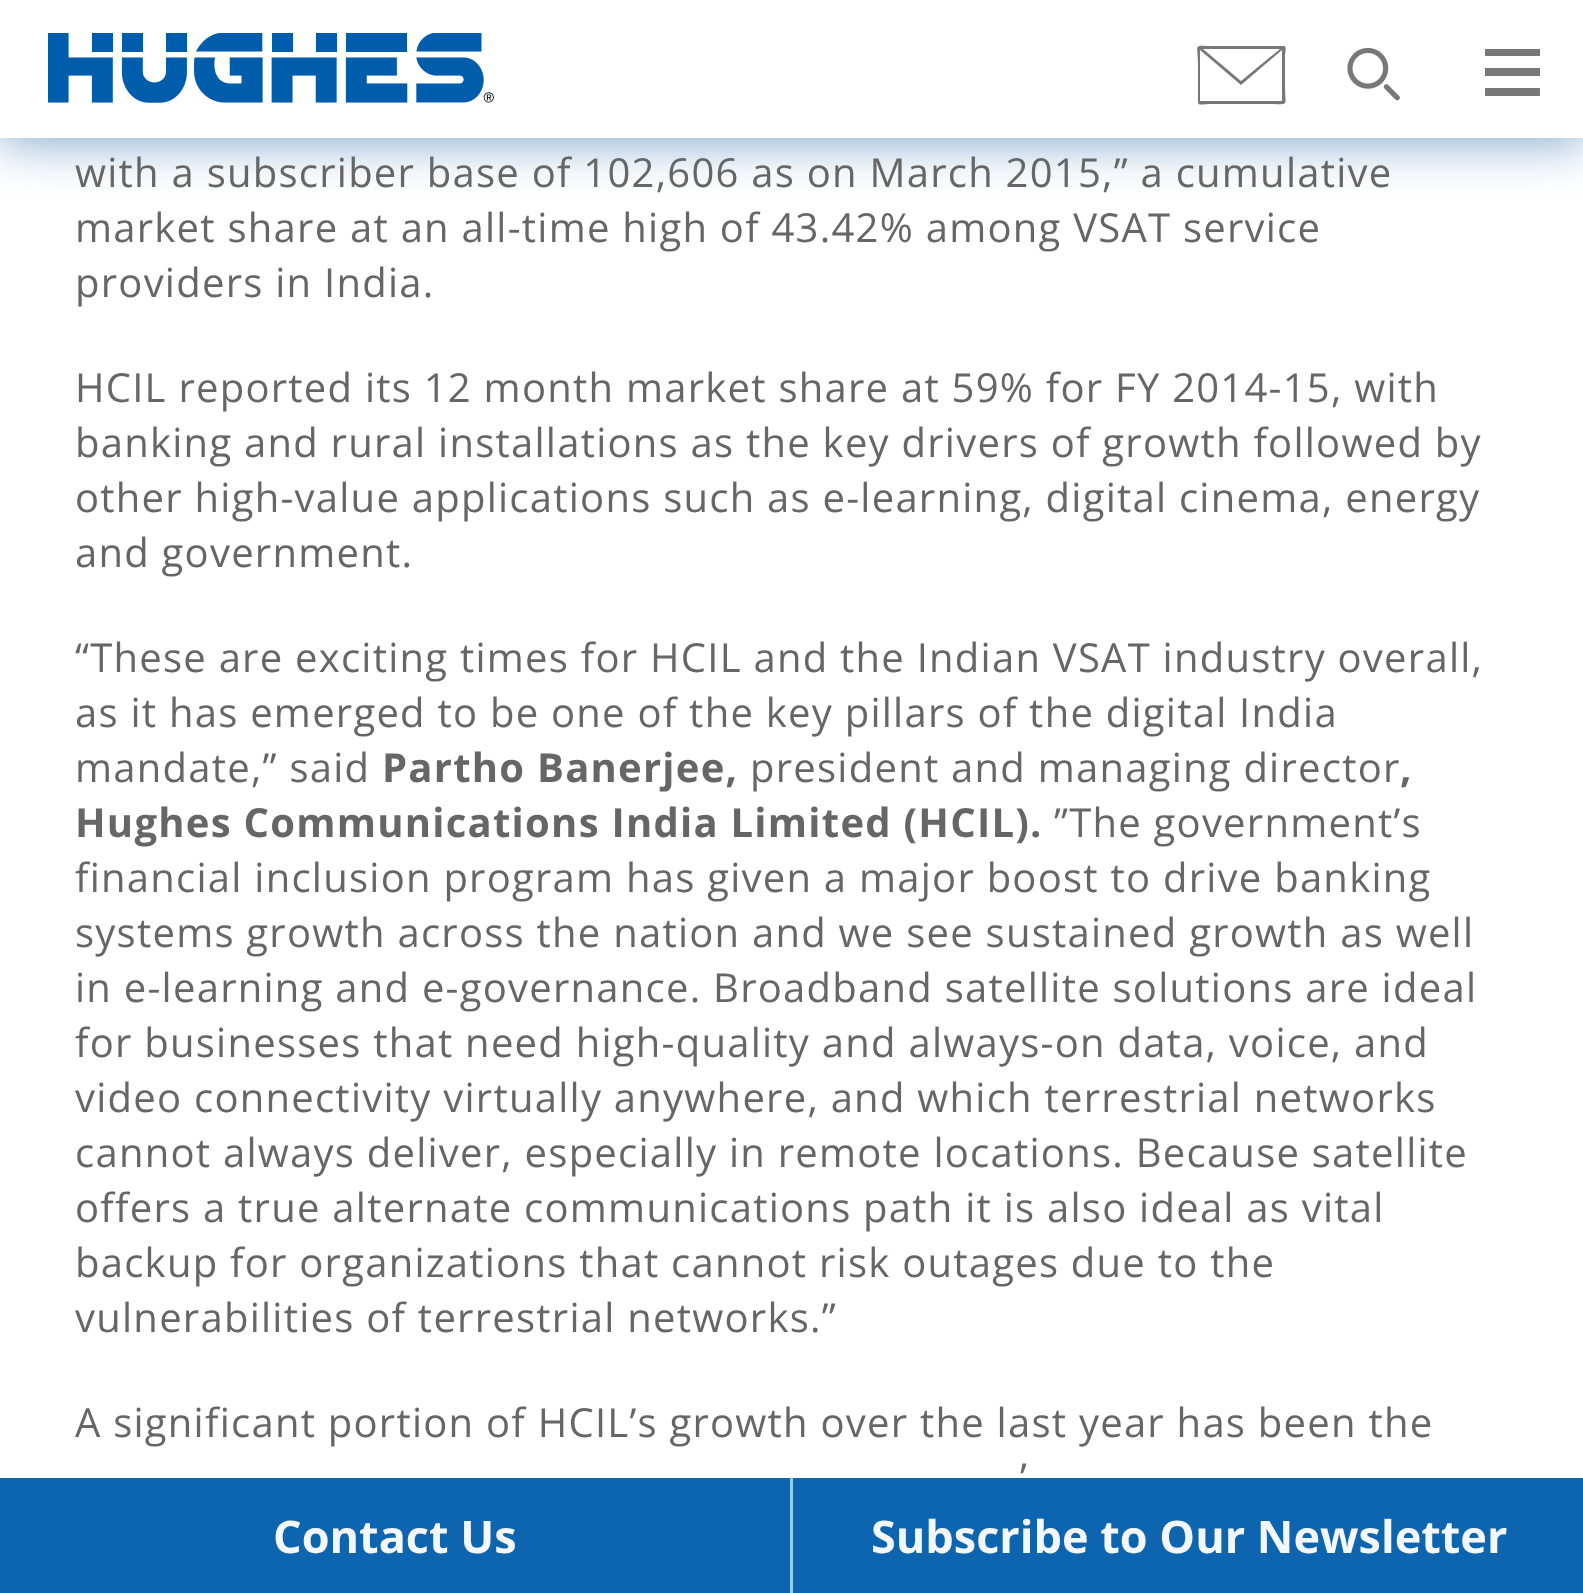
<svg xmlns="http://www.w3.org/2000/svg" xmlns:xlink="http://www.w3.org/1999/xlink" width="1583" height="1593" viewBox="0 0 1583 1593">
<style>
.cls-1{font:40px Open Sans;letter-spacing:1.25px;fill:#666666}
.cls-2{font:bold 40px Open Sans;letter-spacing:1.25px;fill:#666666}
.cls-3{font:bold 45px Open Sans;fill:#f3f7fb}
</style>
<rect width="100%" height="100%" fill="#ffffff"/>
<rect fill="#0a539b" fill-opacity="0.5" filter="blur(25px)" x="-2" y="0" width="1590" height="143"/>
<rect fill="#ffffff" x="0" y="0" width="1583" height="138"/>
<image xlink:href="image0.png" x="48" y="33" width="446" height="70"/>
<path fill="#787878" d="M1200 101V50L1241 85L1282 50V101ZM1280 49L1241 81L1203 49ZM1284 46H1213C1192 46 1198 42 1198 66V93C1198 108 1196 104 1213 104H1270C1290 104 1285 108 1285 84V56C1285 53 1287 46 1284 46Z"/>
<image xlink:href="image1.png" x="1347" y="48" width="53" height="53"/>
<path fill="#787878" d="M1485 76V68H1540V76ZM1485 56V49H1540V56ZM1485 96V88H1540V96Z"/>
<rect fill="#005dac" fill-opacity="0.95" x="0" y="1478" width="793" height="115"/>
<rect fill="#90d5f3" fill-opacity="0.95" x="790" y="1478" width="3" height="115"/>
<rect fill="#005dac" fill-opacity="0.95" x="793" y="1478" width="790" height="115"/>
<text class="cls-1"><tspan x="75" y="187">with a subscriber base of 102,606 as on March 2015,” a cumulative</tspan><tspan x="75" y="242">market share at an all-time high of 43.42% among VSAT service</tspan><tspan x="75" y="297">providers in India.</tspan></text>
<text class="cls-1"><tspan x="75" y="402">HCIL reported its 12 month market share at 59% for FY 2014-15, with</tspan><tspan x="75" y="457">banking and rural installations as the key drivers of growth followed by</tspan><tspan x="75" y="512">other high-value applications such as e-learning, digital cinema, energy</tspan><tspan x="75" y="567">and government.</tspan></text>
<text class="cls-1"><tspan x="75" y="672">“These are exciting times for HCIL and the Indian VSAT industry overall,</tspan><tspan x="75" y="727">as it has emerged to be one of the key pillars of the digital India</tspan><tspan x="75" y="782">mandate,” said</tspan></text>
<text class="cls-2" x="382" y="782">Partho Banerjee,</text>
<text class="cls-1" x="750" y="782">president and managing director</text>
<text class="cls-2" x="1400" y="782">,</text>
<text class="cls-2" x="75" y="837">Hughes Communications India Limited (HCIL).</text>
<text class="cls-1" x="1054" y="837">”The government’s</text>
<text class="cls-1"><tspan x="75" y="892">financial inclusion program has given a major boost to drive banking</tspan><tspan x="75" y="947">systems growth across the nation and we see sustained growth as well</tspan><tspan x="75" y="1002">in e-learning and e-governance. Broadband satellite solutions are ideal</tspan><tspan x="75" y="1057">for businesses that need high-quality and always-on data, voice, and</tspan><tspan x="75" y="1112">video connectivity virtually anywhere, and which terrestrial networks</tspan><tspan x="75" y="1167">cannot always deliver, especially in remote locations. Because satellite</tspan><tspan x="75" y="1222">offers a true alternate communications path it is also ideal as vital</tspan><tspan x="75" y="1277">backup for organizations that cannot risk outages due to the</tspan><tspan x="75" y="1332">vulnerabilities of terrestrial networks.”</tspan></text>
<text class="cls-1" x="75" y="1437">A significant portion of HCIL’s growth over the last year has been the</text>
<text class="cls-1" x="1020" y="1492">’</text>
<text class="cls-3" x="273" y="1553">Contact Us</text>
<text class="cls-3" x="871" y="1553">Subscribe to Our Newsletter</text>
</svg>
